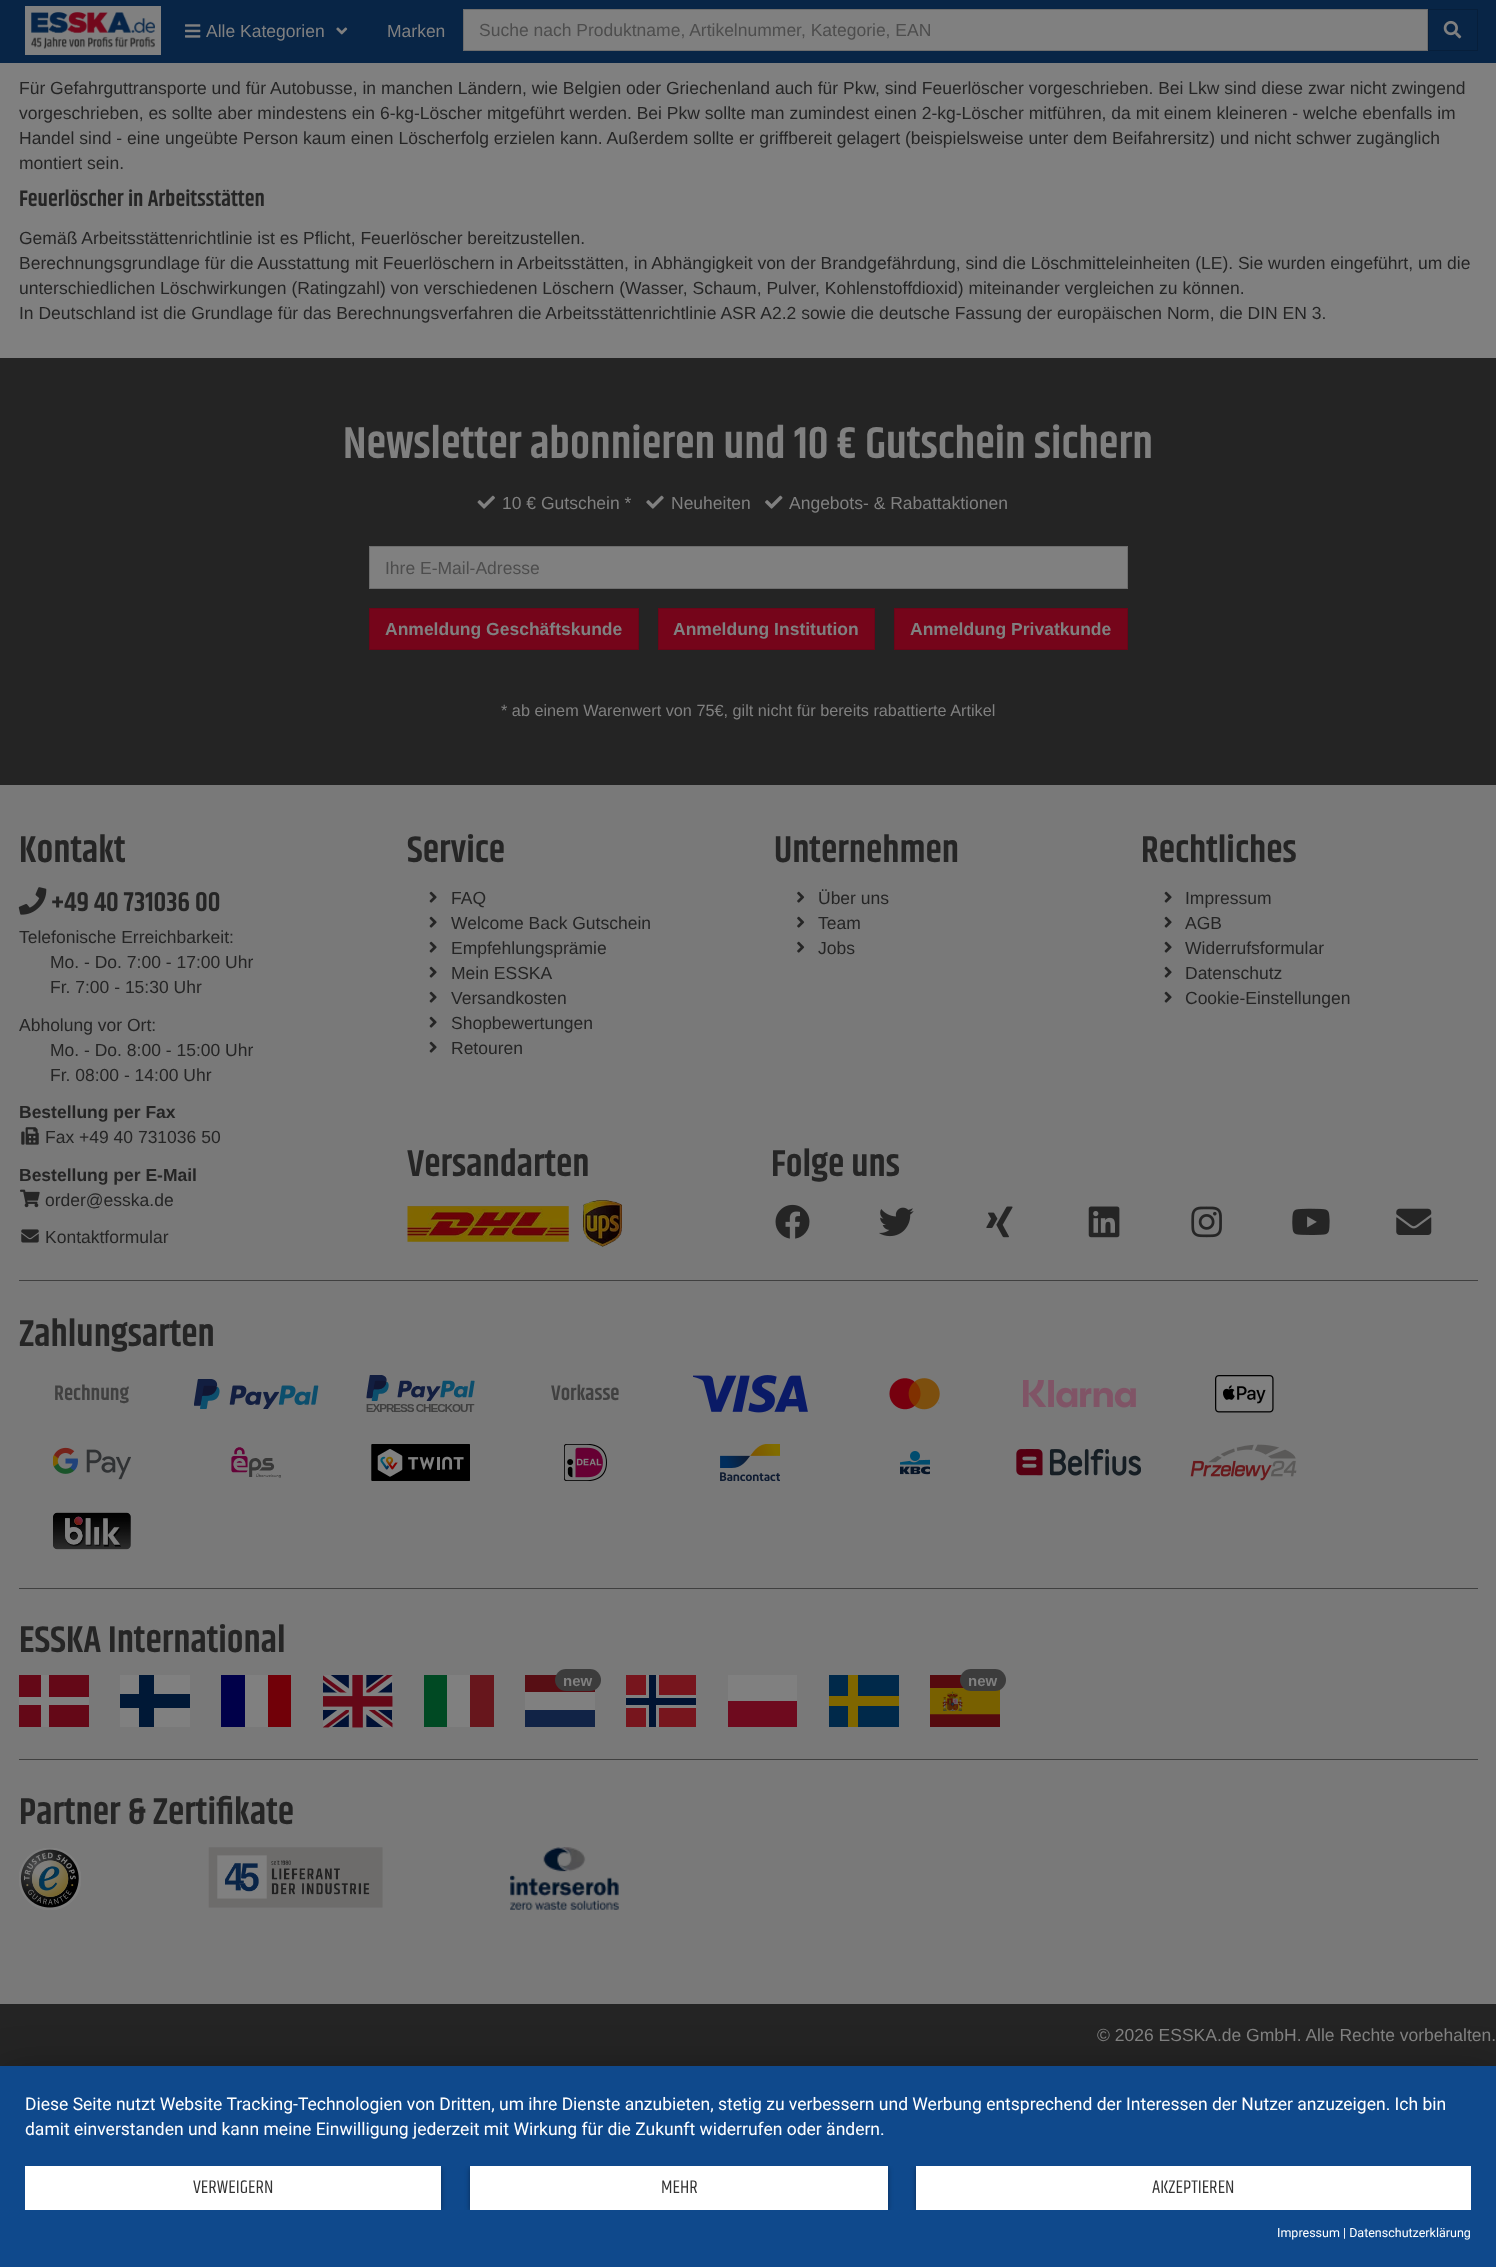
<svg xmlns="http://www.w3.org/2000/svg" xmlns:xlink="http://www.w3.org/1999/xlink" width="1496" height="2267" viewBox="0 0 1496 2267">
<style>
.cls-1{font:17.5px Liberation Sans;fill:#808080}
.cls-2{font:17.5px Liberation Sans;fill:#4d4d4d}
.cls-3{font:17.5px Liberation Sans;fill:#252525}
.cls-4{font:600 22.5px Khand;fill:#252525}
.cls-5{font:600 45px Khand;fill:#808080}
.cls-6{font:bold 17.5px Liberation Sans;fill:#808080}
.cls-7{font:16.25px Liberation Sans;fill:#808080}
.cls-8{font:600 37.5px Khand;fill:#252525}
.cls-9{font:600 27.5px Khand;fill:#252525}
.cls-10{font:bold 17.5px Liberation Sans;fill:#252525}
.cls-11{font:600 21px Khand;fill:#404040}
.cls-12{font:bold 15px Liberation Sans;fill:#808080}
.cls-13{font:17.5px Roboto;fill:#ffffff}
.cls-14{font:18.75px Khand;fill:#333333}
.cls-15{font:12.5px Roboto;fill:#ffffff}
</style>
<defs>
<clipPath id="clip1"><rect x="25" y="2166" width="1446" height="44"/></clipPath>
</defs>
<rect width="100%" height="100%" fill="#808080"/>
<rect fill="#082546" x="0" y="0" width="1496" height="63"/>
<rect fill="#808080" x="25" y="6" width="136" height="49"/>
<image xlink:href="image0.png" x="31" y="12" width="124" height="37"/>
<image xlink:href="image1.png" x="185" y="24" width="16" height="14"/>
<image xlink:href="image2.png" x="336" y="27" width="12" height="8"/>
<rect fill="#808080" stroke="#6d6d6d" x="463.5" y="9.5" width="964" height="41"/>
<rect fill="none" stroke="#071f3b" x="1428.5" y="9.5" width="49" height="41"/>
<image xlink:href="image3.png" x="1443" y="20" width="19" height="19"/>
<rect fill="#242424" x="0" y="358" width="1496" height="1708"/>
<image xlink:href="image4.png" x="477" y="495" width="18" height="14"/>
<image xlink:href="image5.png" x="646" y="495" width="18" height="14"/>
<image xlink:href="image6.png" x="765" y="495" width="18" height="14"/>
<rect fill="#808080" stroke="#6d6d6d" x="369.5" y="546.5" width="758" height="42"/>
<rect fill="#75051a" stroke="#690518" x="369.5" y="608.5" width="269" height="41"/>
<rect fill="#75051a" stroke="#690518" x="658.5" y="608.5" width="216" height="41"/>
<rect fill="#75051a" stroke="#690518" x="894.5" y="608.5" width="233" height="41"/>
<rect fill="#797979" x="0" y="785" width="1496" height="1219"/>
<image xlink:href="image7.png" x="18" y="887" width="29" height="28"/>
<image xlink:href="image8.png" x="21" y="1127" width="18" height="18"/>
<image xlink:href="image9.png" x="20" y="1189" width="20" height="19"/>
<image xlink:href="image10.png" x="21" y="1229" width="18" height="14"/>
<image xlink:href="image11.png" x="429" y="891" width="8" height="12"/>
<image xlink:href="image11.png" x="429" y="916" width="8" height="12"/>
<image xlink:href="image11.png" x="429" y="941" width="8" height="12"/>
<image xlink:href="image11.png" x="429" y="966" width="8" height="12"/>
<image xlink:href="image11.png" x="429" y="991" width="8" height="12"/>
<image xlink:href="image11.png" x="429" y="1016" width="8" height="12"/>
<image xlink:href="image11.png" x="429" y="1041" width="8" height="12"/>
<image xlink:href="image12.png" x="797" y="891" width="8" height="12"/>
<image xlink:href="image12.png" x="797" y="916" width="8" height="12"/>
<image xlink:href="image12.png" x="797" y="941" width="8" height="12"/>
<image xlink:href="image11.png" x="1164" y="891" width="8" height="12"/>
<image xlink:href="image11.png" x="1164" y="916" width="8" height="12"/>
<image xlink:href="image11.png" x="1164" y="941" width="8" height="12"/>
<image xlink:href="image11.png" x="1164" y="966" width="8" height="12"/>
<image xlink:href="image11.png" x="1164" y="991" width="8" height="12"/>
<image xlink:href="image13.png" x="407" y="1206" width="162" height="36"/>
<image xlink:href="image14.png" x="583" y="1200" width="39" height="47"/>
<image xlink:href="image15.png" x="775" y="1204" width="35" height="35"/>
<image xlink:href="image16.png" x="879" y="1207" width="35" height="30"/>
<image xlink:href="image17.png" x="986" y="1206" width="27" height="32"/>
<image xlink:href="image18.png" x="1088" y="1206" width="32" height="32"/>
<image xlink:href="image19.png" x="1191" y="1206" width="31" height="32"/>
<image xlink:href="image20.png" x="1292" y="1208" width="38" height="27"/>
<image xlink:href="image21.png" x="1396" y="1208" width="36" height="27"/>
<rect fill="#404040" x="19" y="1280" width="1459" height="1"/>
<image xlink:href="image22.png" x="194" y="1379" width="125" height="30"/>
<image xlink:href="image23.png" x="366" y="1375" width="109" height="37"/>
<image xlink:href="image24.png" x="693" y="1375" width="115" height="38"/>
<image xlink:href="image25.png" x="889" y="1378" width="51" height="32"/>
<image xlink:href="image26.png" x="1023" y="1380" width="113" height="28"/>
<image xlink:href="image27.png" x="1215" y="1375" width="59" height="38"/>
<image xlink:href="image28.png" x="53" y="1447" width="78" height="33"/>
<image xlink:href="image29.png" x="231" y="1447" width="50" height="31"/>
<image xlink:href="image30.png" x="371" y="1444" width="99" height="37"/>
<image xlink:href="image31.png" x="564" y="1444" width="43" height="37"/>
<image xlink:href="image32.png" x="720" y="1444" width="60" height="37"/>
<image xlink:href="image33.png" x="900" y="1451" width="30" height="24"/>
<image xlink:href="image34.png" x="1016" y="1449" width="125" height="27"/>
<image xlink:href="image35.png" x="1190" y="1444" width="107" height="37"/>
<image xlink:href="image36.png" x="53" y="1512" width="78" height="38"/>
<rect fill="#404040" x="19" y="1588" width="1459" height="1"/>
<rect fill="#640817" x="19" y="1675" width="70" height="52"/>
<rect fill="#808080" x="41" y="1675" width="8" height="52"/>
<rect fill="#808080" x="19" y="1697" width="70" height="8"/>
<rect fill="#808080" x="120" y="1675" width="70" height="52"/>
<rect fill="#001836" x="120" y="1694" width="70" height="14"/>
<rect fill="#001836" x="139" y="1675" width="15" height="52"/>
<rect fill="#808080" x="245" y="1675" width="23" height="52"/>
<rect fill="#000049" x="221" y="1675" width="24" height="52"/>
<rect fill="#710008" x="268" y="1675" width="23" height="52"/>
<image xlink:href="image37.png" x="323" y="1675" width="70" height="53"/>
<rect fill="#808080" x="447" y="1675" width="23" height="52"/>
<rect fill="#004923" x="424" y="1675" width="23" height="52"/>
<rect fill="#67161c" x="470" y="1675" width="24" height="52"/>
<rect fill="#570e14" x="525" y="1675" width="70" height="17"/>
<rect fill="#808080" x="525" y="1692" width="70" height="18"/>
<rect fill="#112346" x="525" y="1710" width="70" height="17"/>
<rect fill="#3c3c3c" x="555" y="1669" width="46" height="22" rx="11"/>
<rect fill="#77151d" x="626" y="1675" width="70" height="52"/>
<rect fill="#808080" x="646" y="1675" width="13" height="52"/>
<rect fill="#808080" x="626" y="1695" width="70" height="13"/>
<rect fill="#001332" x="649" y="1675" width="7" height="52"/>
<rect fill="#001332" x="626" y="1698" width="70" height="7"/>
<rect fill="#808080" x="728" y="1675" width="69" height="26"/>
<rect fill="#6e0a1e" x="728" y="1701" width="69" height="26"/>
<rect fill="#00294a" x="829" y="1675" width="70" height="52"/>
<path fill="#7f6600" d="M848 1675V1696H829V1706H848V1727H858V1706H899V1696H858V1675Z"/>
<image xlink:href="image38.png" x="930" y="1675" width="70" height="52"/>
<rect fill="#3c3c3c" x="960" y="1669" width="46" height="22" rx="11"/>
<rect fill="#404040" x="19" y="1759" width="1459" height="1"/>
<image xlink:href="image39.png" x="19" y="1848" width="62" height="62"/>
<image xlink:href="image40.png" x="208" y="1847" width="175" height="61"/>
<image xlink:href="image41.png" x="510" y="1847" width="109" height="63"/>
<rect fill="#000000" fill-opacity="0.3" filter="blur(22.5px)" x="0" y="2074" width="1496" height="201"/>
<rect fill="#0f498c" x="0" y="2066" width="1496" height="201"/>
<g clip-path="url(#clip1)">
<rect fill="#000000" fill-opacity="0.4" filter="blur(2.5px)" x="25" y="2168" width="416" height="43"/>
</g>
<rect fill="#ffffff" x="25" y="2166" width="416" height="44"/>
<g clip-path="url(#clip1)">
<rect fill="#000000" fill-opacity="0.4" filter="blur(2.5px)" x="470" y="2168" width="418" height="43"/>
</g>
<rect fill="#ffffff" x="470" y="2166" width="418" height="44"/>
<g clip-path="url(#clip1)">
<rect fill="#000000" fill-opacity="0.4" filter="blur(2.5px)" x="916" y="2168" width="555" height="43"/>
</g>
<rect fill="#ffffff" x="916" y="2166" width="555" height="44"/>
<text class="cls-1" x="206" y="37">Alle Kategorien</text>
<text class="cls-1" x="387" y="37">Marken</text>
<text class="cls-2" x="479" y="36">Suche nach Produktname, Artikelnummer, Kategorie, EAN</text>
<text class="cls-3"><tspan x="19" y="94">Für Gefahrguttransporte und für Autobusse, in manchen Ländern, wie Belgien oder Griechenland auch für Pkw, sind Feuerlöscher vorgeschrieben. Bei Lkw sind diese zwar nicht zwingend</tspan><tspan x="19" y="119">vorgeschrieben, es sollte aber mindestens ein 6-kg-Löscher mitgeführt werden. Bei Pkw sollte man zumindest einen 2-kg-Löscher mitführen, da mit einem kleineren - welche ebenfalls im</tspan><tspan x="19" y="144">Handel sind - eine ungeübte Person kaum einen Löscherfolg erzielen kann. Außerdem sollte er griffbereit gelagert (beispielsweise unter dem Beifahrersitz) und nicht schwer zugänglich</tspan><tspan x="19" y="169">montiert sein.</tspan></text>
<text class="cls-4" x="19" y="206">Feuerlöscher in Arbeitsstätten</text>
<text class="cls-3"><tspan x="19" y="244">Gemäß Arbeitsstättenrichtlinie ist es Pflicht, Feuerlöscher bereitzustellen.</tspan><tspan x="19" y="269">Berechnungsgrundlage für die Ausstattung mit Feuerlöschern in Arbeitsstätten, in Abhängigkeit von der Brandgefährdung, sind die Löschmitteleinheiten (LE). Sie wurden eingeführt, um die</tspan><tspan x="19" y="294">unterschiedlichen Löschwirkungen (Ratingzahl) von verschiedenen Löschern (Wasser, Schaum, Pulver, Kohlenstoffdioxid) miteinander vergleichen zu können.</tspan><tspan x="19" y="319">In Deutschland ist die Grundlage für das Berechnungsverfahren die Arbeitsstättenrichtlinie ASR A2.2 sowie die deutsche Fassung der europäischen Norm, die DIN EN 3.</tspan></text>
<text class="cls-5" x="343" y="458">Newsletter abonnieren und 10 € Gutschein sichern</text>
<text class="cls-1" x="502" y="509">10 € Gutschein *</text>
<text class="cls-1" x="671" y="509">Neuheiten</text>
<text class="cls-1" x="789" y="509">Angebots- &amp; Rabattaktionen</text>
<text class="cls-2" x="385" y="574">Ihre E-Mail-Adresse</text>
<text class="cls-6" x="385" y="635">Anmeldung Geschäftskunde</text>
<text class="cls-6" x="673" y="635">Anmeldung Institution</text>
<text class="cls-6" x="910" y="635">Anmeldung Privatkunde</text>
<text class="cls-7" x="501" y="716">* ab einem Warenwert von 75€, gilt nicht für bereits rabattierte Artikel</text>
<text class="cls-8" x="19" y="862">Kontakt</text>
<text class="cls-9" x="51" y="911">+49 40 731036 00</text>
<text class="cls-3" x="19" y="943">Telefonische Erreichbarkeit:</text>
<text class="cls-3"><tspan x="50" y="968">Mo. - Do. 7:00 - 17:00 Uhr</tspan><tspan x="50" y="993">Fr. 7:00 - 15:30 Uhr</tspan></text>
<text class="cls-3" x="19" y="1031">Abholung vor Ort:</text>
<text class="cls-3"><tspan x="50" y="1056">Mo. - Do. 8:00 - 15:00 Uhr</tspan><tspan x="50" y="1081">Fr. 08:00 - 14:00 Uhr</tspan></text>
<text class="cls-10" x="19" y="1118">Bestellung per Fax</text>
<text class="cls-3" x="45" y="1143">Fax +49 40 731036 50</text>
<text class="cls-10" x="19" y="1181">Bestellung per E-Mail</text>
<text class="cls-3" x="45" y="1206">order@esska.de</text>
<text class="cls-3" x="45" y="1243">Kontaktformular</text>
<text class="cls-8" x="407" y="862">Service</text>
<text class="cls-3"><tspan x="451" y="904">FAQ</tspan><tspan x="451" y="929">Welcome Back Gutschein</tspan><tspan x="451" y="954">Empfehlungsprämie</tspan><tspan x="451" y="979">Mein ESSKA</tspan><tspan x="451" y="1004">Versandkosten</tspan><tspan x="451" y="1029">Shopbewertungen</tspan><tspan x="451" y="1054">Retouren</tspan></text>
<text class="cls-8" x="774" y="862">Unternehmen</text>
<text class="cls-3"><tspan x="818" y="904">Über uns</tspan><tspan x="818" y="929">Team</tspan><tspan x="818" y="954">Jobs</tspan></text>
<text class="cls-8" x="1141" y="862">Rechtliches</text>
<text class="cls-3"><tspan x="1185" y="904">Impressum</tspan><tspan x="1185" y="929">AGB</tspan><tspan x="1185" y="954">Widerrufsformular</tspan><tspan x="1185" y="979">Datenschutz</tspan><tspan x="1185" y="1004">Cookie-Einstellungen</tspan></text>
<text class="cls-8" x="407" y="1176">Versandarten</text>
<text class="cls-8" x="771" y="1176">Folge uns</text>
<text class="cls-8" x="19" y="1346">Zahlungsarten</text>
<text class="cls-11" x="54" y="1400">Rechnung</text>
<text class="cls-11" x="551" y="1400">Vorkasse</text>
<text class="cls-8" x="19" y="1652">ESSKA International</text>
<text class="cls-12" x="563" y="1686">new</text>
<text class="cls-12" x="968" y="1686">new</text>
<text class="cls-8" x="19" y="1824">Partner &amp; Zertifikate</text>
<text class="cls-1" x="1097" y="2041">© 2026 ESSKA.de GmbH. Alle Rechte vorbehalten.</text>
<text class="cls-13"><tspan x="25" y="2110">Diese Seite nutzt Website Tracking-Technologien von Dritten, um ihre Dienste anzubieten, stetig zu verbessern und Werbung entsprechend der Interessen der Nutzer anzuzeigen. Ich bin</tspan><tspan x="25" y="2135">damit einverstanden und kann meine Einwilligung jederzeit mit Wirkung für die Zukunft widerrufen oder ändern.</tspan></text>
<text class="cls-14" x="193" y="2193">VERWEIGERN</text>
<text class="cls-14" x="661" y="2193">MEHR</text>
<text class="cls-14" x="1152" y="2193">AKZEPTIEREN</text>
<text class="cls-15" x="1277" y="2237">Impressum | Datenschutzerklärung</text>
</svg>
